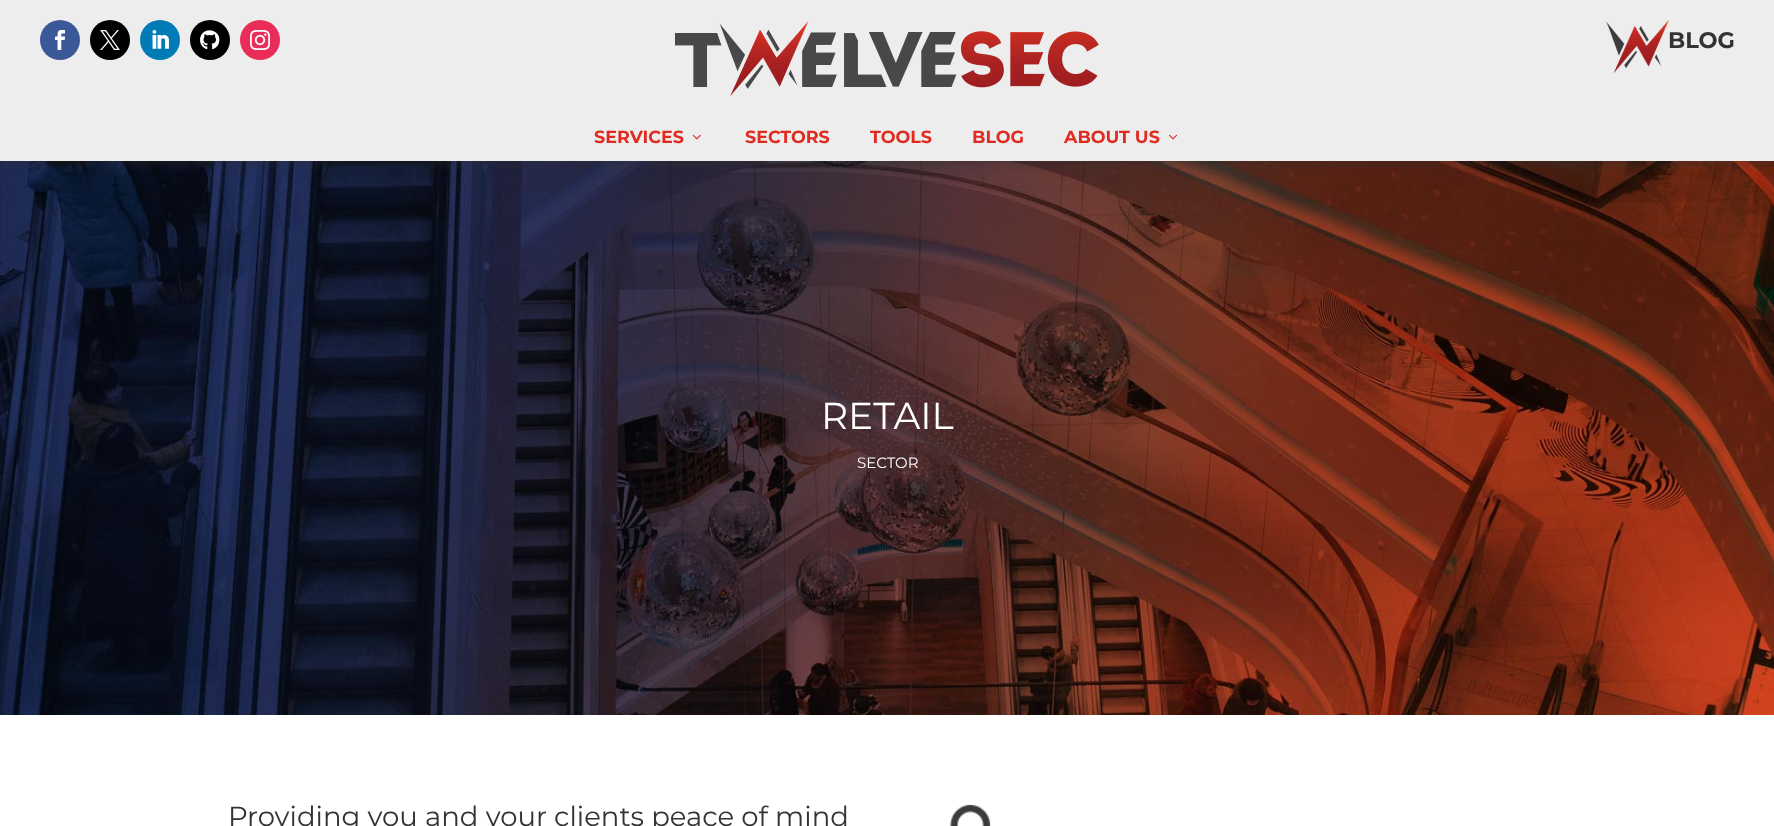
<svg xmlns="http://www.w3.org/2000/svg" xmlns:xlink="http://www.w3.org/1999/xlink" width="1774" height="826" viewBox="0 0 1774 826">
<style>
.cls-1{font:bold 22.5px Montserrat;fill:#333333}
.cls-2{font:bold 17.5px Montserrat;fill:#e02b20}
.cls-3{font:37.5px Montserrat;fill:#ffffff}
.cls-4{font:15px Montserrat;fill:#ffffff}
.cls-5{font:27.5px Montserrat;fill:#333333}
</style>
<rect width="100%" height="100%" fill="#ffffff"/>
<image xlink:href="image9.png" x="0" y="161" width="1774" height="554"/>
<rect fill="#333333" fill-opacity="0.4" filter="blur(5px)" x="0" y="3" width="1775" height="161"/>
<rect fill="#ededed" x="0" y="0" width="1774" height="161"/>
<circle fill="#3b5998" cx="60" cy="40" r="20"/>
<image xlink:href="image0.png" x="55" y="30" width="10" height="20"/>
<circle fill="#000000" cx="110" cy="40" r="20"/>
<image xlink:href="image1.png" x="100" y="30" width="20" height="20"/>
<circle fill="#007bb6" cx="160" cy="40" r="20"/>
<image xlink:href="image2.png" x="152" y="30" width="17" height="19"/>
<circle fill="#000000" cx="210" cy="40" r="20"/>
<image xlink:href="image3.png" x="200" y="30" width="20" height="20"/>
<circle fill="#ea2c59" cx="260" cy="40" r="20"/>
<image xlink:href="image4.png" x="250" y="30" width="20" height="20"/>
<image xlink:href="image5.png" x="675" y="21" width="424" height="75"/>
<image xlink:href="image6.png" x="1606" y="20" width="63" height="53"/>
<image xlink:href="image7.png" x="692" y="134" width="9" height="6"/>
<image xlink:href="image8.png" x="1169" y="134" width="9" height="6"/>
<image xlink:href="image10.png" x="949" y="804" width="42" height="22"/>
<text class="cls-1" x="1668" y="48">BLOG</text>
<text class="cls-2" x="594" y="143">SERVICES</text>
<text class="cls-2" x="745" y="143">SECTORS</text>
<text class="cls-2" x="870" y="143">TOOLS</text>
<text class="cls-2" x="972" y="143">BLOG</text>
<text class="cls-2" x="1064" y="143">ABOUT US</text>
<text class="cls-3" x="821" y="429">RETAIL</text>
<text class="cls-4" x="857" y="468">SECTOR</text>
<text class="cls-5" x="228" y="826">Providing you and your clients peace of mind</text>
</svg>
